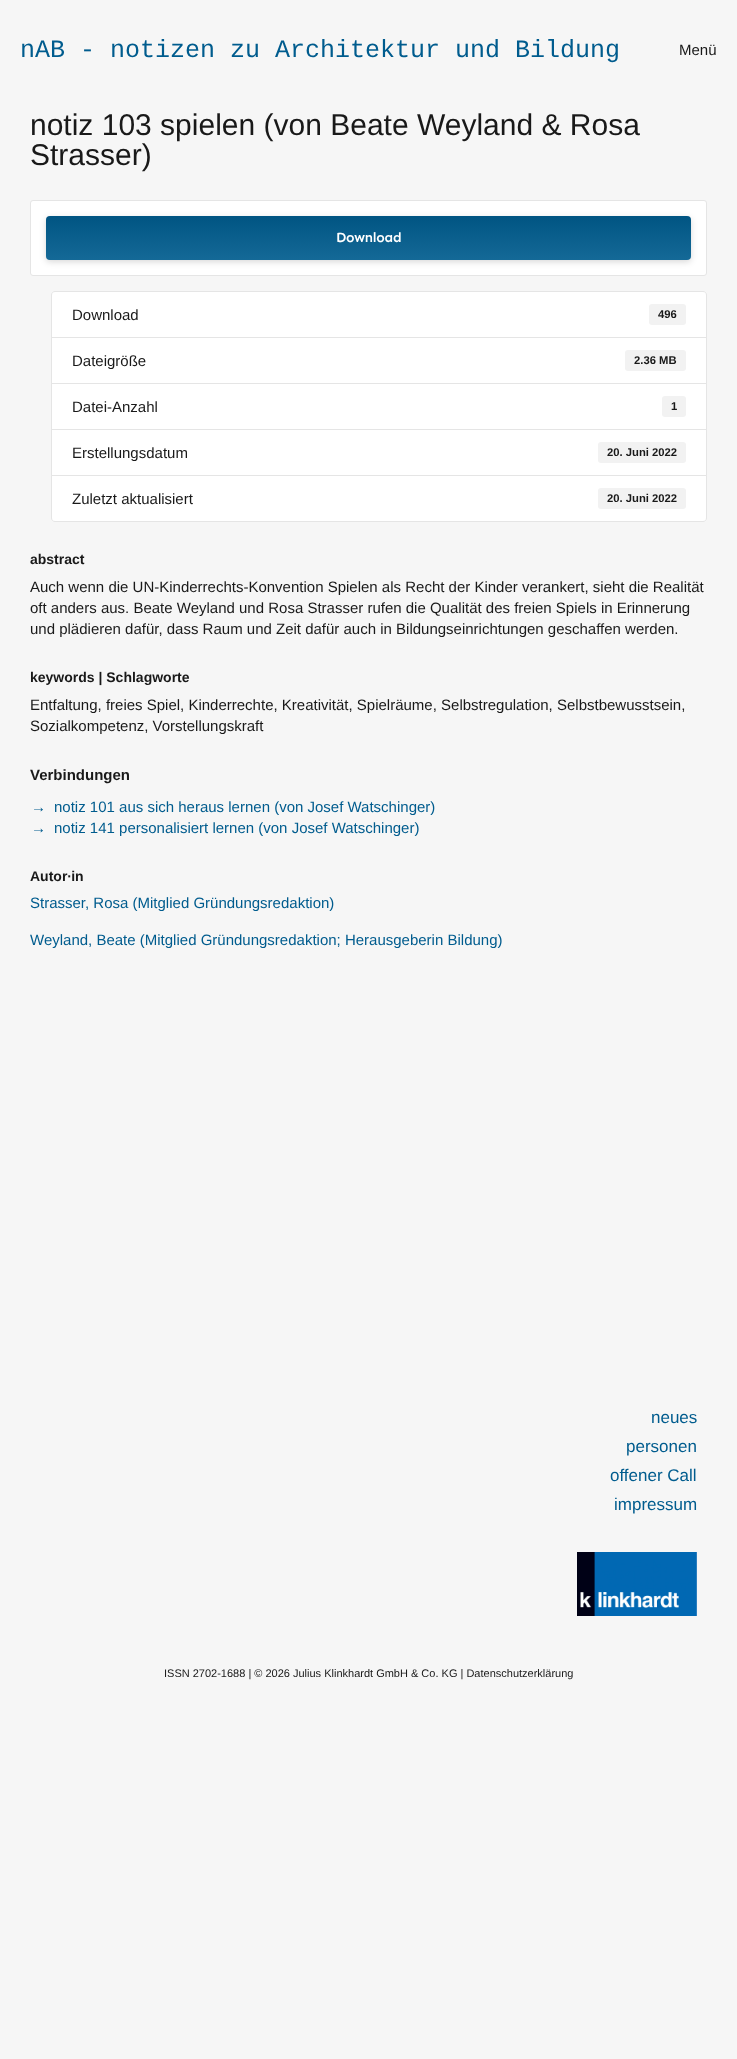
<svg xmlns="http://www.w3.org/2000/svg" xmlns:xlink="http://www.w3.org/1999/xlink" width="737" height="2059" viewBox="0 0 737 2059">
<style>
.cls-1{font:25px Liberation Mono;fill:#005c8e}
.cls-2{font:15px Liberation Sans;fill:#191919}
.cls-3{font:30px Liberation Sans;fill:#191919}
.cls-4{font:600 14px Sen;letter-spacing:-0.25px;fill:#ffffff}
.cls-5{font:bold 11.25px Liberation Sans;fill:#191919}
.cls-6{font:bold 14px Liberation Sans;fill:#191919}
.cls-7{font:bold 15px Liberation Sans;fill:#191919}
.cls-8{font:15px Liberation Sans;fill:#005c8e}
.cls-9{font:17px Liberation Sans;fill:#005c8e}
.cls-10{font:11px Liberation Sans;fill:#191919}
</style>
<defs>
<linearGradient id="g1" gradientUnits="userSpaceOnUse" x1="369" y1="216" x2="369" y2="260"><stop offset="0" stop-color="#000000" stop-opacity="0.08"/><stop offset="1" stop-color="#ffffff" stop-opacity="0.08"/></linearGradient>
</defs>
<rect width="100%" height="100%" fill="#f6f6f6"/>
<rect fill="#ffffff" stroke="#e5e5e5" x="30.5" y="200.5" width="676" height="75" rx="2.5"/>
<rect fill="#000000" fill-opacity="0.15" filter="blur(3px)" x="46" y="218" width="645" height="44" rx="4"/>
<rect fill="#005c8e" x="46" y="216" width="645" height="44" rx="4"/>
<rect fill="url(#g1)" x="46" y="216" width="645" height="44" rx="4"/>
<path fill="#ffffff" stroke="#e5e5e5" d="M55 291.5H703C705 291.5 706.5 293 706.5 295V337.5H51.5V295C51.5 293 53 291.5 55 291.5Z"/>
<rect fill="#f2f2f2" x="649" y="304" width="37" height="21" rx="3"/>
<rect fill="#ffffff" stroke="#e5e5e5" x="51.5" y="337.5" width="655" height="46"/>
<rect fill="#f2f2f2" x="625" y="350" width="61" height="21" rx="3"/>
<rect fill="#ffffff" stroke="#e5e5e5" x="51.5" y="383.5" width="655" height="46"/>
<rect fill="#f2f2f2" x="662" y="396" width="24" height="21" rx="3"/>
<rect fill="#ffffff" stroke="#e5e5e5" x="51.5" y="429.5" width="655" height="46"/>
<rect fill="#f2f2f2" x="598" y="442" width="88" height="21" rx="3"/>
<path fill="#ffffff" stroke="#e5e5e5" d="M51.5 475.5H706.5V518C706.5 520 705 521.5 703 521.5H55C53 521.5 51.5 520 51.5 518Z"/>
<rect fill="#f2f2f2" x="598" y="488" width="88" height="21" rx="3"/>
<image xlink:href="image0.png" x="577" y="1552" width="120" height="64"/>
<text class="cls-1" x="20" y="57">nAB - notizen zu Architektur und Bildung</text>
<text class="cls-2" x="679" y="55">Menü</text>
<text class="cls-3"><tspan x="30" y="135">notiz 103 spielen (von Beate Weyland &amp; Rosa</tspan><tspan x="30" y="165">Strasser)</tspan></text>
<text class="cls-4" x="336" y="242">Download</text>
<text class="cls-2" x="72" y="320">Download</text>
<text class="cls-5" x="658" y="318">496</text>
<text class="cls-2" x="72" y="366">Dateigröße</text>
<text class="cls-5" x="634" y="364">2.36 MB</text>
<text class="cls-2" x="72" y="412">Datei-Anzahl</text>
<text class="cls-5" x="671" y="410">1</text>
<text class="cls-2" x="72" y="458">Erstellungsdatum</text>
<text class="cls-5" x="607" y="456">20. Juni 2022</text>
<text class="cls-2" x="72" y="504">Zuletzt aktualisiert</text>
<text class="cls-5" x="607" y="502">20. Juni 2022</text>
<text class="cls-6" x="30" y="564">abstract</text>
<text class="cls-2"><tspan x="30" y="592">Auch wenn die UN-Kinderrechts-Konvention Spielen als Recht der Kinder verankert, sieht die Realität</tspan><tspan x="30" y="613">oft anders aus. Beate Weyland und Rosa Strasser rufen die Qualität des freien Spiels in Erinnerung</tspan><tspan x="30" y="634">und plädieren dafür, dass Raum und Zeit dafür auch in Bildungseinrichtungen geschaffen werden.</tspan></text>
<text class="cls-6" x="30" y="682">keywords | Schlagworte</text>
<text class="cls-2"><tspan x="30" y="710">Entfaltung, freies Spiel, Kinderrechte, Kreativität, Spielräume, Selbstregulation, Selbstbewusstsein,</tspan><tspan x="30" y="731">Sozialkompetenz, Vorstellungskraft</tspan></text>
<text class="cls-7" x="30" y="780">Verbindungen</text>
<text class="cls-8" x="31" y="812">→</text>
<text class="cls-8" x="54" y="812">notiz 101 aus sich heraus lernen (von Josef Watschinger)</text>
<text class="cls-8" x="31" y="833">→</text>
<text class="cls-8" x="54" y="833">notiz 141 personalisiert lernen (von Josef Watschinger)</text>
<text class="cls-6" x="30" y="881">Autor∙in</text>
<text class="cls-8" x="30" y="908">Strasser, Rosa (Mitglied Gründungsredaktion)</text>
<text class="cls-8" x="30" y="945">Weyland, Beate (Mitglied Gründungsredaktion; Herausgeberin Bildung)</text>
<text class="cls-9" x="651" y="1423">neues</text>
<text class="cls-9" x="626" y="1452">personen</text>
<text class="cls-9" x="610" y="1481">offener Call</text>
<text class="cls-9" x="614" y="1510">impressum</text>
<text class="cls-10" x="164" y="1677">ISSN 2702-1688 | © 2026 Julius Klinkhardt GmbH &amp; Co. KG | Datenschutzerklärung</text>
</svg>
